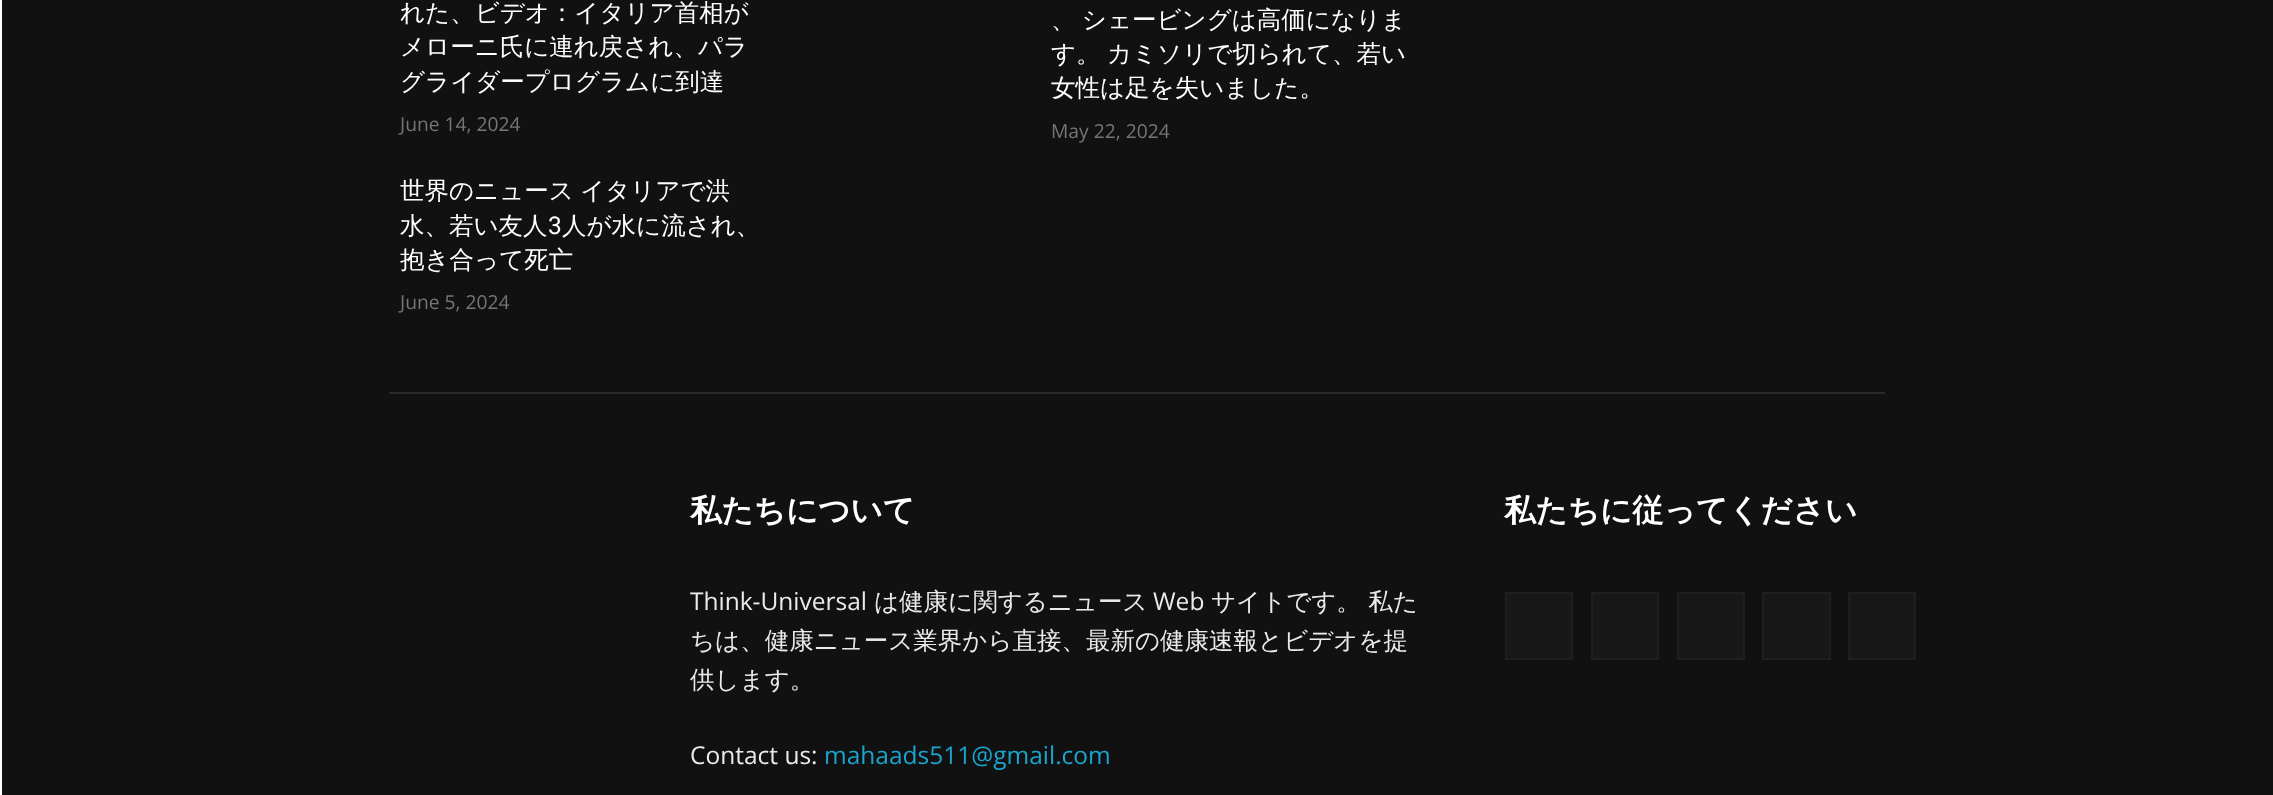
<svg xmlns="http://www.w3.org/2000/svg" xmlns:xlink="http://www.w3.org/1999/xlink" width="2273" height="795" viewBox="0 0 2273 795">
<style>
.cls-1{font:500 24.5px WenQuanYi Zen Hei;fill:#ffffff}
.cls-2{font:19.25px Open Sans;fill:#767676}
.cls-3{font:24.5px Roboto;fill:#ffffff}
.cls-4{font:bold 31.5px WenQuanYi Zen Hei;fill:#ffffff}
.cls-5{font:24.5px Open Sans;fill:#eaeaea}
.cls-6{font:500 24.5px WenQuanYi Zen Hei;fill:#eaeaea}
.cls-7{font:24.5px Open Sans;fill:#1aa4ce}
</style>
<rect width="100%" height="100%" fill="#ffffff"/>
<rect fill="#111111" x="2" y="0" width="2271" height="795"/>
<rect fill="#292929" x="389" y="392" width="1496" height="2"/>
<rect fill="#181818" stroke="#1f1f1f" stroke-width="2" x="1506" y="593" width="66" height="66"/>
<rect fill="#181818" stroke="#1f1f1f" stroke-width="2" x="1592" y="593" width="66" height="66"/>
<rect fill="#181818" stroke="#1f1f1f" stroke-width="2" x="1678" y="593" width="66" height="66"/>
<rect fill="#181818" stroke="#1f1f1f" stroke-width="2" x="1763" y="593" width="67" height="66"/>
<rect fill="#181818" stroke="#1f1f1f" stroke-width="2" x="1849" y="593" width="66" height="66"/>
<text class="cls-1"><tspan x="400" y="21">れた、ビデオ：イタリア首相が</tspan><tspan x="400" y="55">メローニ氏に連れ戻され、パラ</tspan><tspan x="400" y="90">グライダープログラムに到達</tspan></text>
<text class="cls-2" x="400" y="131">June 14, 2024</text>
<text class="cls-1"><tspan x="400" y="199" word-spacing="-1">世界のニュース イタリアで洪</tspan><tspan x="400" y="234">水、若い友人</tspan></text>
<text class="cls-3" x="548" y="234">3</text>
<text class="cls-1" x="562" y="234">人が水に流され、</text>
<text class="cls-1" x="400" y="268">抱き合って死亡</text>
<text class="cls-2" x="400" y="309">June 5, 2024</text>
<text class="cls-1"><tspan x="1051" y="28" word-spacing="-1">、 シェービングは高価になりま</tspan><tspan x="1051" y="62" word-spacing="-1">す。 カミソリで切られて、若い</tspan><tspan x="1051" y="96">女性は足を失いました。</tspan></text>
<text class="cls-2" x="1051" y="138">May 22, 2024</text>
<text class="cls-4" x="690" y="521">私たちについて</text>
<text class="cls-5" x="690" y="610">Think-Universal</text>
<text class="cls-6" x="874" y="610">は健康に関するニュース</text>
<text class="cls-5" x="1153" y="610">Web</text>
<text class="cls-6" x="1211" y="610">サイトです。 私た</text>
<text class="cls-6"><tspan x="690" y="649">ちは、健康ニュース業界から直接、最新の健康速報とビデオを提</tspan><tspan x="690" y="688">供します。</tspan></text>
<text class="cls-5" x="690" y="764">Contact us:</text>
<text class="cls-7" x="824" y="764">mahaads511@gmail.com</text>
<text class="cls-4" x="1504" y="521">私たちに従ってください</text>
</svg>
